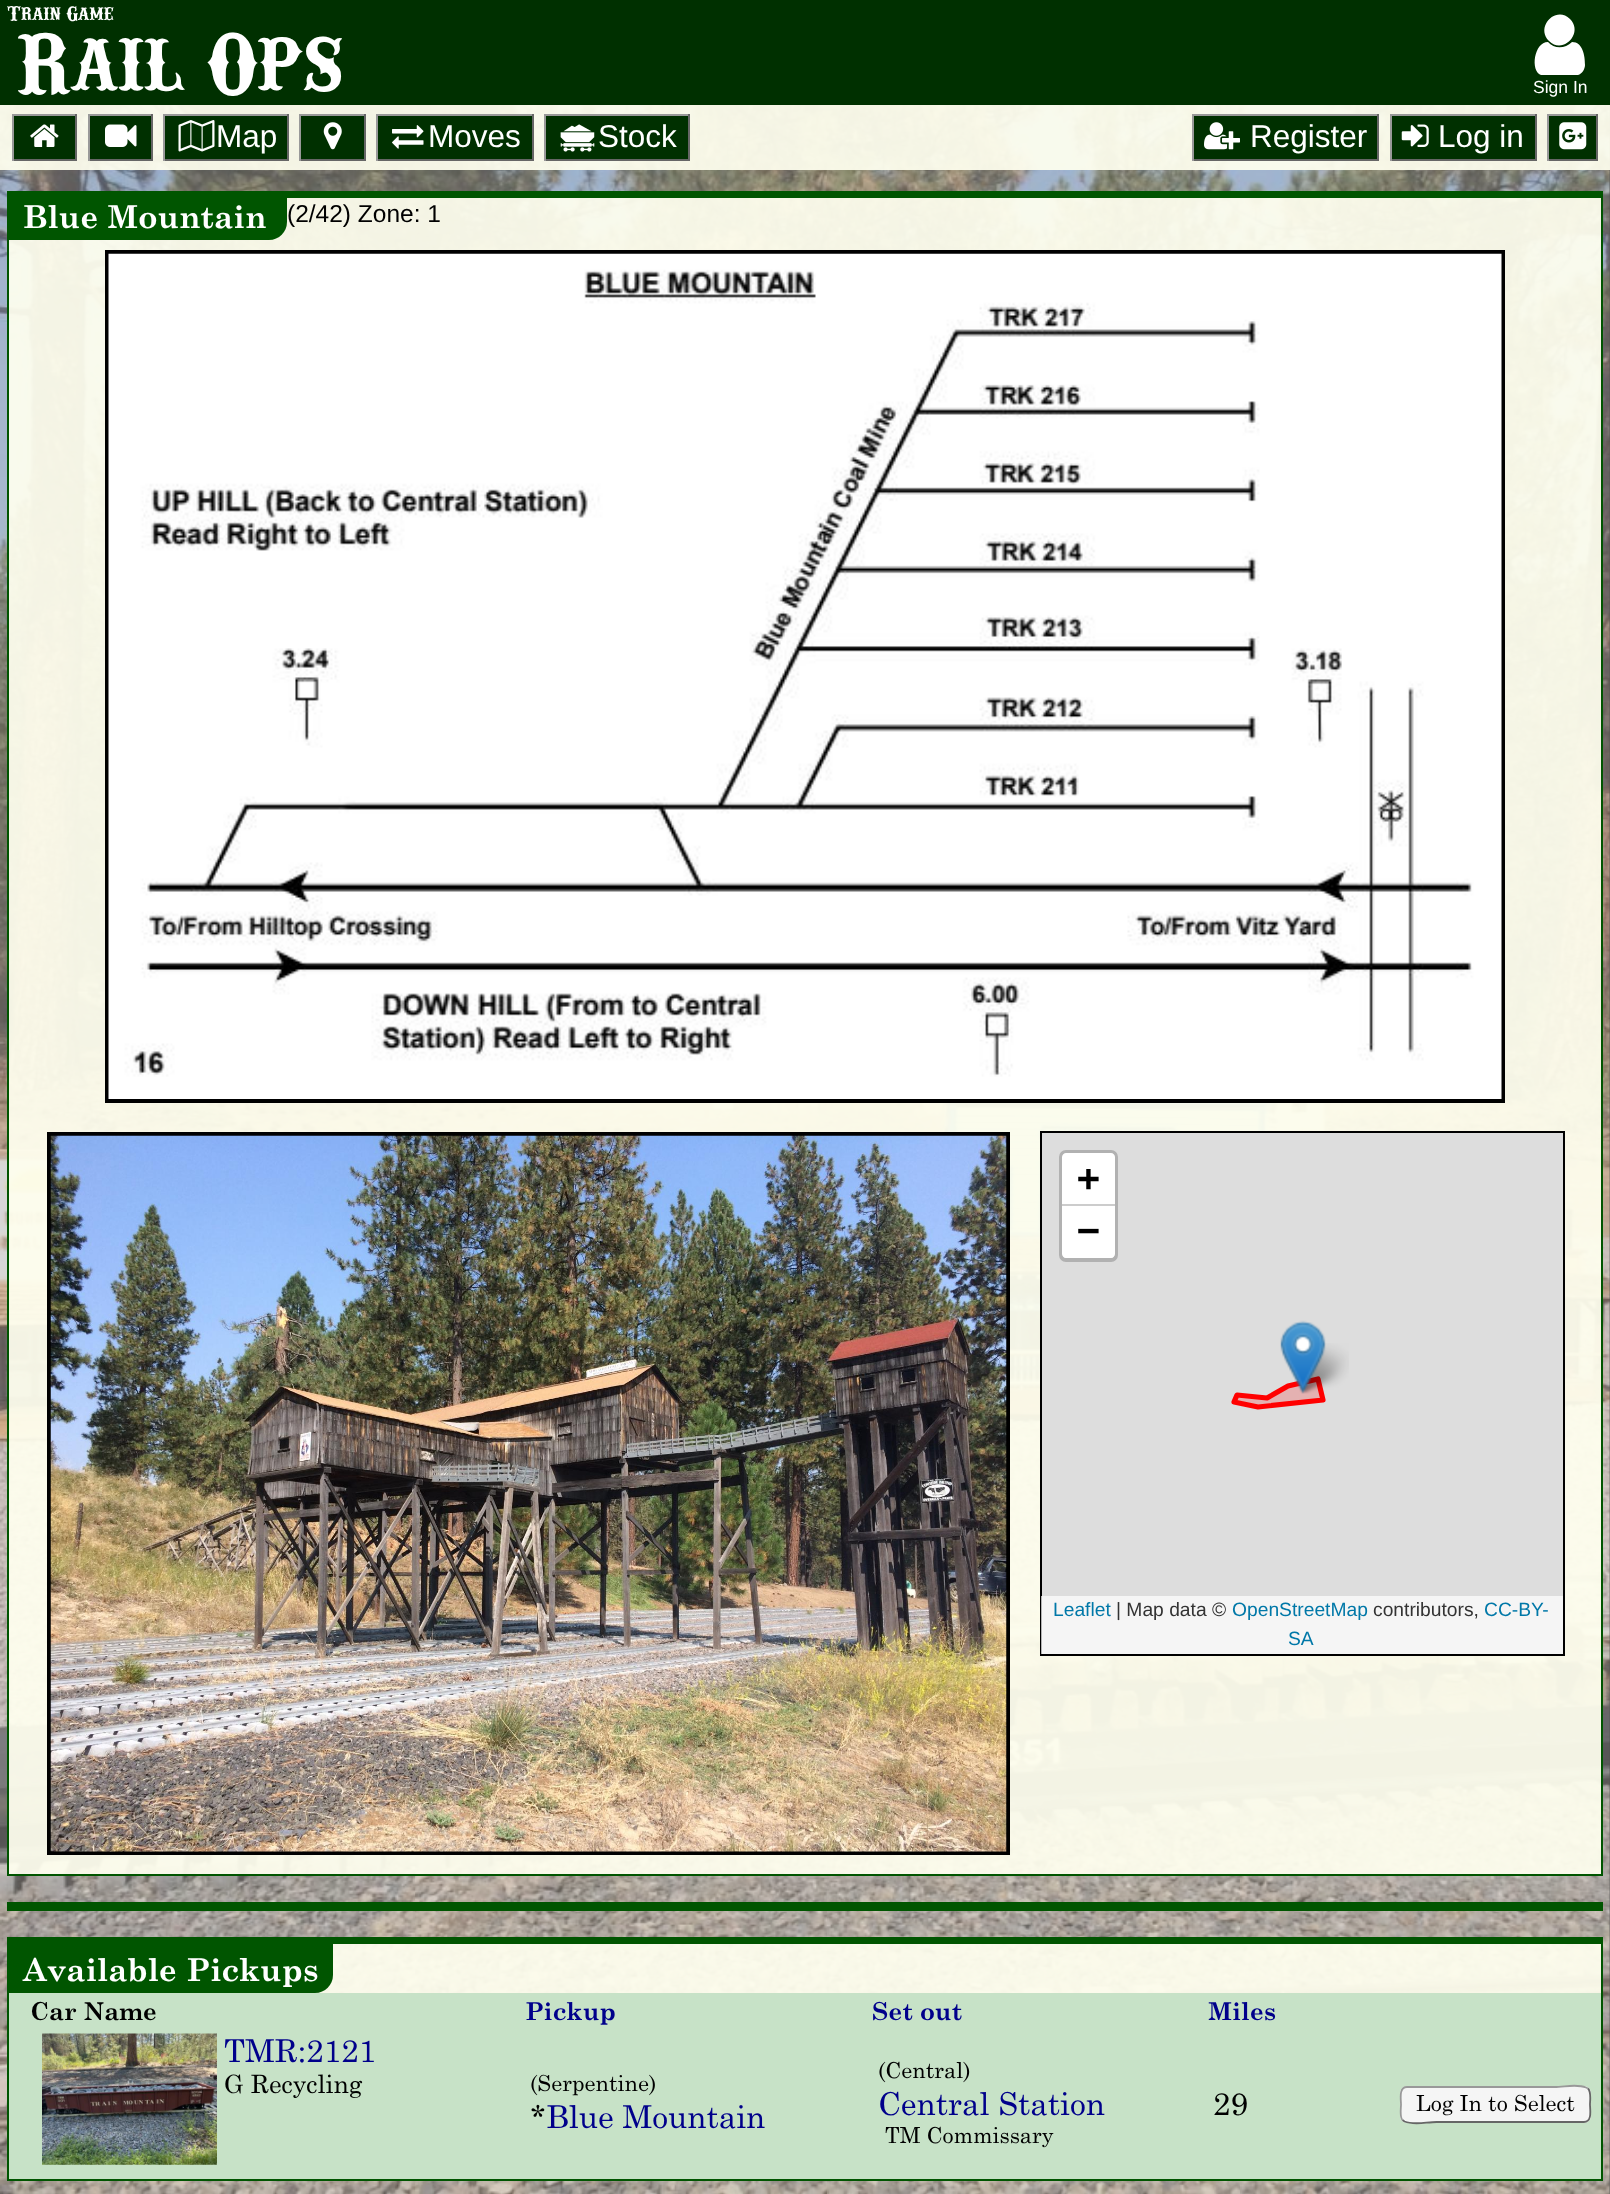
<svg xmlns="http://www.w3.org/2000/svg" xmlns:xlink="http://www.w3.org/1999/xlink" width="1610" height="2194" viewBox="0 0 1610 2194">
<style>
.cls-1{font:bold 21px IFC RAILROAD;fill:#ffffff}
.cls-2{font:bold 87.5px IFC RAILROAD;fill:#ffffff}
.cls-3{font:17.5px Liberation Sans;fill:#ffffff}
.cls-4{font:31.5px Liberation Sans;fill:#ffffff}
.cls-5{font:bold 31.5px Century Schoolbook;fill:#ffffff}
.cls-6{font:24.5px Liberation Sans;fill:#000000}
.cls-7{font:bold 38px DejaVu Sans Mono;fill:#000000}
.cls-8{font:19.25px Liberation Sans;fill:#0078a8}
.cls-9{font:19.25px Liberation Sans;fill:#333333}
.cls-10{font:bold 24.5px Century Schoolbook;fill:#000000}
.cls-11{font:bold 24.5px Century Schoolbook;fill:#00008b}
.cls-12{font:31.5px Century Schoolbook;fill:#00008b}
.cls-13{font:25.25px Century Schoolbook;fill:#000000}
.cls-14{font:22px Century Schoolbook;fill:#000000}
.cls-15{font:31.5px Century Schoolbook;fill:#000000}
</style>
<rect width="100%" height="100%" fill="#505050"/>
<image xlink:href="image0.png" x="0" y="105" width="1610" height="2089"/>
<rect fill="#003000" x="0" y="0" width="1610" height="105"/>
<path fill="#ffffff" d="M1585 65C1585 69 1582 74 1578 75H1549H1541C1530 71 1534 42 1548 42C1554 49 1565 49 1572 42C1583 42 1585 56 1585 65ZM1570 19C1584 33 1563 55 1549 41C1535 27 1556 5 1570 19Z"/>
<rect fill="#ffffef" fill-opacity="0.93" x="0" y="105" width="1610" height="65"/>
<rect fill="#003000" x="14" y="116" width="61" height="43"/>
<rect fill="#999999" x="12" y="114" width="65" height="2"/>
<rect fill="#666666" x="75" y="114" width="2" height="47"/>
<rect fill="#666666" x="12" y="159" width="65" height="2"/>
<rect fill="#999999" x="12" y="114" width="2" height="47"/>
<image xlink:href="image1.png" x="30" y="124" width="29" height="23"/>
<rect fill="#003000" x="90" y="116" width="61" height="43"/>
<rect fill="#999999" x="88" y="114" width="64" height="2"/>
<rect fill="#666666" x="151" y="114" width="2" height="47"/>
<rect fill="#666666" x="88" y="159" width="64" height="2"/>
<rect fill="#999999" x="88" y="114" width="2" height="47"/>
<image xlink:href="image2.png" x="105" y="124" width="32" height="23"/>
<rect fill="#003000" x="165" y="116" width="122" height="43"/>
<rect fill="#999999" x="163" y="114" width="126" height="2"/>
<rect fill="#666666" x="287" y="114" width="2" height="47"/>
<rect fill="#666666" x="163" y="159" width="126" height="2"/>
<rect fill="#999999" x="163" y="114" width="2" height="47"/>
<image xlink:href="image3.png" x="178" y="120" width="37" height="32"/>
<rect fill="#003000" x="301" y="116" width="63" height="43"/>
<rect fill="#999999" x="299" y="114" width="67" height="2"/>
<rect fill="#666666" x="364" y="114" width="2" height="47"/>
<rect fill="#666666" x="299" y="159" width="67" height="2"/>
<rect fill="#999999" x="299" y="114" width="2" height="47"/>
<image xlink:href="image4.png" x="323" y="122" width="19" height="28"/>
<rect fill="#003000" x="378" y="116" width="154" height="43"/>
<rect fill="#999999" x="376" y="114" width="158" height="2"/>
<rect fill="#666666" x="532" y="114" width="2" height="47"/>
<rect fill="#666666" x="376" y="159" width="158" height="2"/>
<rect fill="#999999" x="376" y="114" width="2" height="47"/>
<image xlink:href="image5.png" x="392" y="125" width="32" height="24"/>
<rect fill="#003000" x="546" y="116" width="142" height="43"/>
<image xlink:href="image6.png" x="560" y="124" width="35" height="28"/>
<rect fill="#999999" x="544" y="114" width="146" height="2"/>
<rect fill="#666666" x="688" y="114" width="2" height="47"/>
<rect fill="#666666" x="544" y="159" width="146" height="2"/>
<rect fill="#999999" x="544" y="114" width="2" height="47"/>
<rect fill="#003000" x="1194" y="116" width="183" height="43"/>
<rect fill="#999999" x="1192" y="114" width="187" height="2"/>
<rect fill="#666666" x="1377" y="114" width="2" height="47"/>
<rect fill="#666666" x="1192" y="159" width="187" height="2"/>
<rect fill="#999999" x="1192" y="114" width="2" height="47"/>
<image xlink:href="image7.png" x="1204" y="122" width="36" height="28"/>
<rect fill="#003000" x="1392" y="116" width="143" height="43"/>
<rect fill="#999999" x="1390" y="114" width="147" height="2"/>
<rect fill="#666666" x="1535" y="114" width="2" height="47"/>
<rect fill="#666666" x="1390" y="159" width="147" height="2"/>
<rect fill="#999999" x="1390" y="114" width="2" height="47"/>
<image xlink:href="image8.png" x="1401" y="124" width="28" height="23"/>
<rect fill="#003000" x="1549" y="116" width="47" height="43"/>
<rect fill="#999999" x="1547" y="114" width="51" height="2"/>
<rect fill="#666666" x="1596" y="114" width="2" height="47"/>
<rect fill="#666666" x="1547" y="159" width="51" height="2"/>
<rect fill="#999999" x="1547" y="114" width="2" height="47"/>
<image xlink:href="image9.png" x="1559" y="122" width="28" height="28"/>
<rect fill="#ffffef" fill-opacity="0.93" x="9" y="198" width="1592" height="1676"/>
<rect fill="#005500" x="7" y="191" width="1596" height="7"/>
<rect fill="#005500" x="1601" y="191" width="2" height="1685"/>
<rect fill="#005500" x="7" y="1874" width="1596" height="2"/>
<rect fill="#005500" x="7" y="191" width="2" height="1685"/>
<path fill="#005500" d="M9 198H287V222C287 232 279 240 269 240H9Z"/>
<rect fill="none" stroke="#000000" stroke-width="4" x="107" y="252" width="1396" height="849"/>
<image xlink:href="image10.png" x="108" y="253" width="1394" height="846"/>
<rect fill="none" stroke="#000000" stroke-width="4" x="49" y="1134" width="959" height="719"/>
<image xlink:href="image11.png" x="50" y="1135" width="957" height="717"/>
<rect fill="#dddddd" stroke="#000000" stroke-width="2" x="1041" y="1132" width="523" height="523"/>
<rect fill="none" stroke="#b1b1b1" stroke-width="4" x="1061" y="1152" width="55" height="108" rx="5"/>
<path fill="#ffffff" d="M1066 1153H1111C1113 1153 1115 1155 1115 1157V1206H1062V1157C1062 1155 1064 1153 1066 1153Z"/>
<rect fill="#cccccc" x="1062" y="1204" width="53" height="2"/>
<path fill="#ffffff" d="M1062 1206H1115V1254C1115 1256 1113 1258 1111 1258H1066C1064 1258 1062 1256 1062 1254Z"/>
<rect fill="#ffffff" fill-opacity="0.7" x="1041" y="1596" width="522" height="58"/>
<path fill="#e4b1b1" fill-rule="evenodd" stroke="#ff0000" stroke-width="5.2" stroke-linecap="round" stroke-linejoin="round" d="M1318 1379L1323 1400L1258 1407L1234 1402L1237 1395L1267 1398L1288 1386Z"/>
<image xlink:href="image13.png" x="1296" y="1343" width="53" height="51"/>
<image xlink:href="image12.png" x="1280" y="1320" width="46" height="74"/>
<rect fill="#005500" x="7" y="1902" width="1596" height="7"/>
<rect fill="#005500" x="1601" y="1902" width="2" height="9"/>
<rect fill="#005500" x="7" y="1909" width="1596" height="2"/>
<rect fill="#ffffef" fill-opacity="0.93" x="315" y="1944" width="1286" height="49"/>
<rect fill="#005500" x="7" y="1937" width="1596" height="7"/>
<rect fill="#005500" x="1601" y="1937" width="2" height="244"/>
<rect fill="#005500" x="7" y="2179" width="1596" height="2"/>
<rect fill="#005500" x="7" y="1937" width="2" height="244"/>
<path fill="#005500" d="M9 1944H333V1975C333 1985 325 1993 315 1993H9Z"/>
<rect fill="#c7e2c7" x="9" y="1993" width="1592" height="186"/>
<image xlink:href="image14.png" x="42" y="2033" width="175" height="132"/>
<rect fill="#f5f5f5" x="1400" y="2086" width="191" height="37" rx="7"/>
<path fill="none" stroke="#666666" stroke-width="1.8" d="M1588 2088.5C1591.5 2092 1590 2100.5 1590 2104.5C1590 2109.5 1592.5 2122 1584 2122H1436.5C1426 2122 1414.5 2125.5 1404.5 2121.5L1402.5 2120"/>
<path fill="none" stroke="#999999" stroke-width="1.8" d="M1402.5 2120C1399.5 2117 1401 2108.5 1401 2104.5C1401 2099.5 1398.5 2087 1407 2087H1554.5C1565 2087 1576.5 2083.5 1586 2087.5L1588 2088.5"/>
<text class="cls-1" x="7" y="21">Train Game</text>
<text class="cls-2" x="18" y="95">Rail Ops</text>
<text class="cls-3" x="1533" y="93">Sign In</text>
<text class="cls-4" x="216" y="147">Map</text>
<text class="cls-4" x="428" y="147">Moves</text>
<text class="cls-4" x="598" y="147">Stock</text>
<text class="cls-4" x="1250" y="147">Register</text>
<text class="cls-4" x="1438" y="147">Log in</text>
<text class="cls-5" x="23" y="228">Blue Mountain</text>
<text class="cls-6" x="287" y="222">(2/42) Zone: 1</text>
<text class="cls-7"><tspan x="1077" y="1191">+</tspan><tspan x="1077" y="1243">−</tspan></text>
<text class="cls-8" x="1053" y="1616">Leaflet</text>
<text class="cls-9" x="1116" y="1616">| Map data ©</text>
<text class="cls-8" x="1232" y="1616">OpenStreetMap</text>
<text class="cls-9" x="1373" y="1616">contributors,</text>
<text class="cls-8" x="1484" y="1616">CC-BY-</text>
<text class="cls-8" x="1288" y="1645">SA</text>
<text class="cls-5" x="23" y="1981">Available Pickups</text>
<text class="cls-10" x="30" y="2020">Car Name</text>
<text class="cls-11" x="525" y="2020">Pickup</text>
<text class="cls-11" x="872" y="2020">Set out</text>
<text class="cls-11" x="1208" y="2020">Miles</text>
<text class="cls-12" x="224" y="2062">TMR:2121</text>
<text class="cls-13" x="224" y="2093">G Recycling</text>
<text class="cls-14" x="530" y="2091">(Serpentine)</text>
<text class="cls-15" x="530" y="2128">*</text>
<text class="cls-12" x="546" y="2128">Blue Mountain</text>
<text class="cls-14" x="878" y="2078">(Central)</text>
<text class="cls-12" x="878" y="2115">Central Station</text>
<text class="cls-14" x="885" y="2143">TM Commissary</text>
<text class="cls-15" x="1213" y="2115">29</text>
<text class="cls-14" x="1416" y="2111">Log In to Select</text>
</svg>
